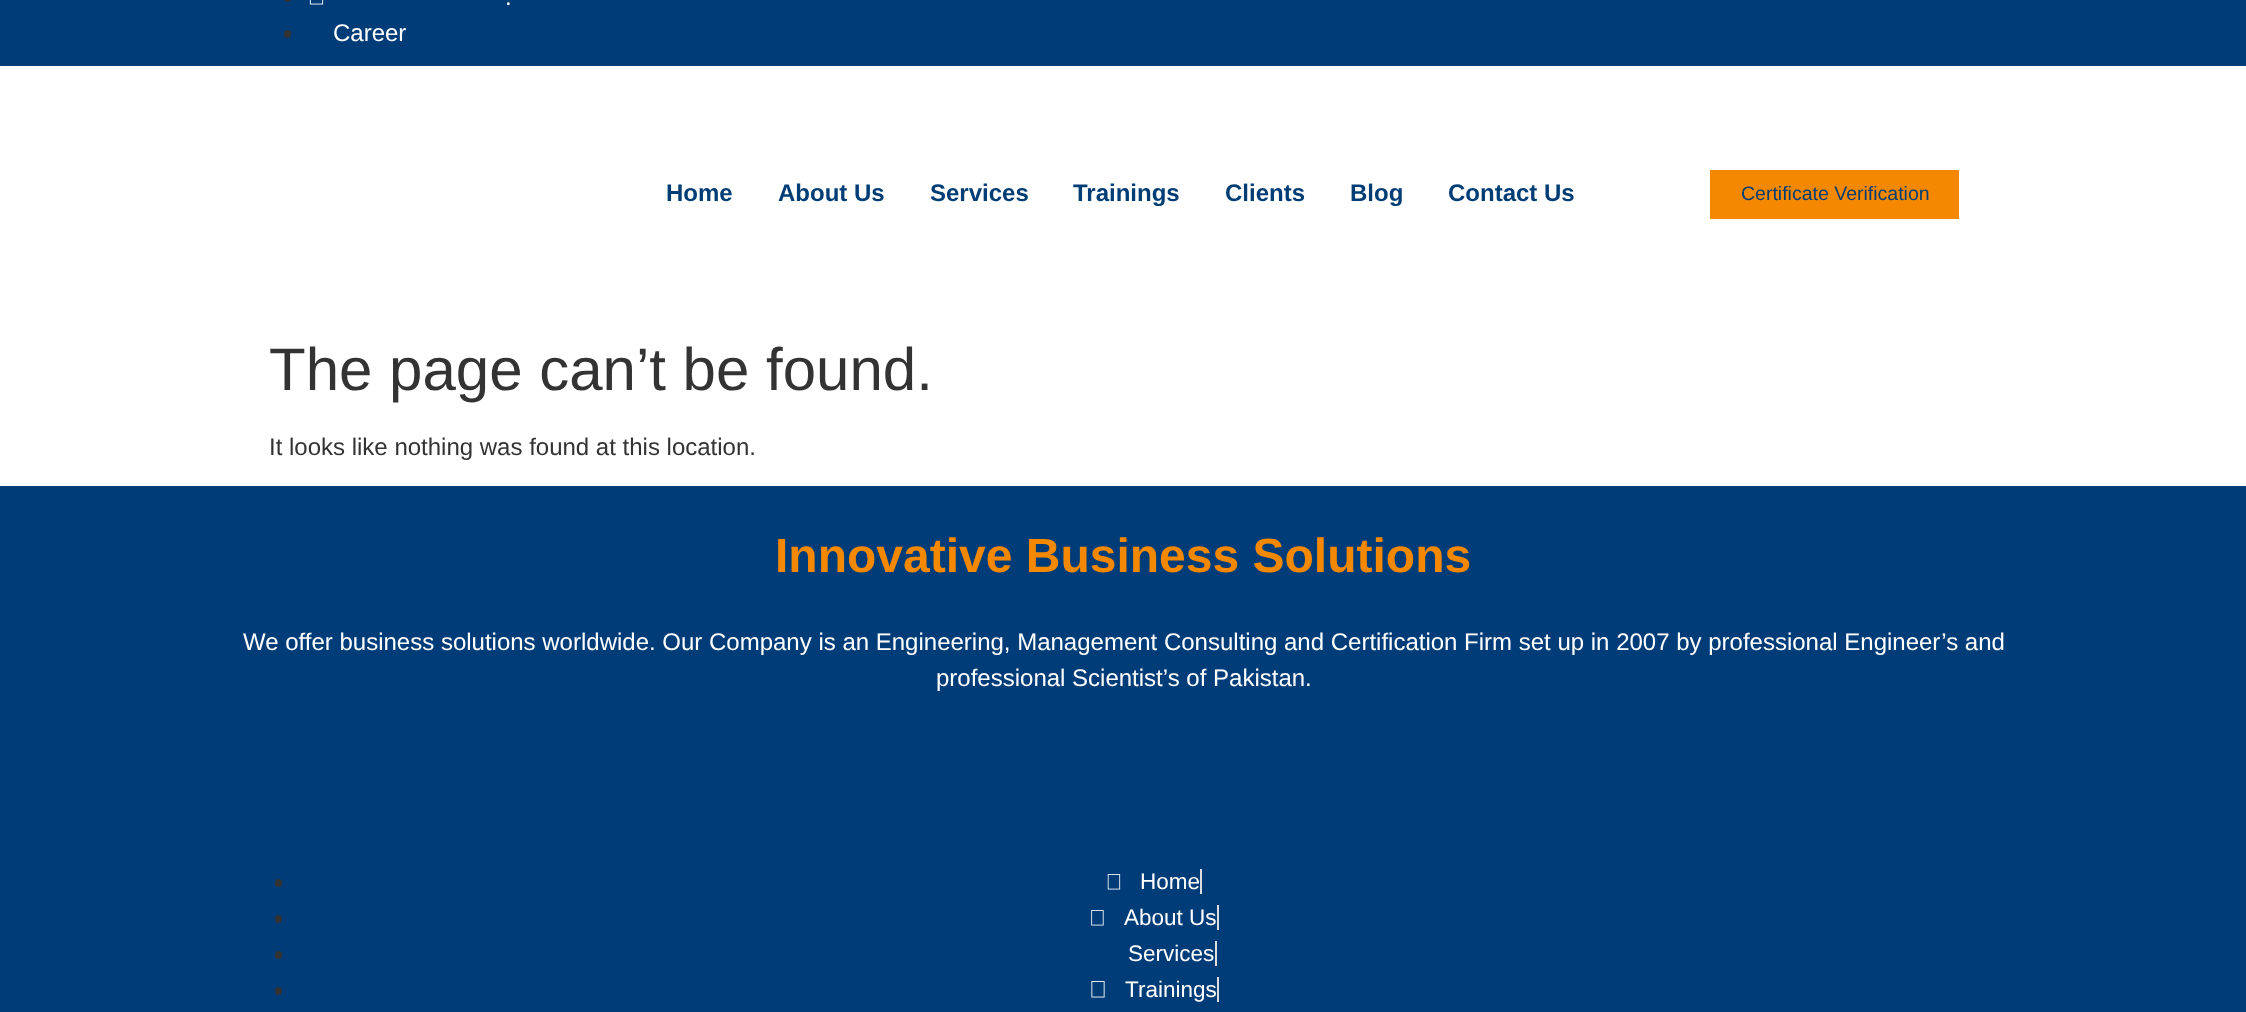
<svg xmlns="http://www.w3.org/2000/svg" xmlns:xlink="http://www.w3.org/1999/xlink" width="2246" height="1012" viewBox="0 0 2246 1012">
<style>
.cls-1{font:24px Liberation Sans;fill:#ffffff}
.cls-2{font:bold 24px Liberation Sans;fill:#003d75}
.cls-3{font:19.5px Liberation Sans;fill:#003d75}
.cls-4{font:60px Liberation Sans;fill:#333333}
.cls-5{font:24px Liberation Sans;fill:#333333}
.cls-6{font:bold 48px Liberation Sans;fill:#f58801}
.cls-7{font:22.5px Liberation Sans;fill:#ffffff}
</style>
<rect width="100%" height="100%" fill="#ffffff"/>
<rect fill="#003d78" x="0" y="0" width="2246" height="66"/>
<rect fill="#333333" x="284" y="-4" width="7" height="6" rx="3.5"/>
<image xlink:href="image0.png" x="309" y="0" width="15" height="5"/>
<rect fill="#333333" x="284" y="30" width="7" height="8" rx="3.5"/>
<rect fill="#f58801" x="1710" y="170" width="249" height="49"/>
<rect fill="#003d78" x="0" y="486" width="2246" height="526"/>
<rect fill="#333333" x="275" y="879" width="7" height="8" rx="3.5"/>
<image xlink:href="image1.png" x="1107" y="874" width="14" height="16"/>
<rect fill="#dddddd" x="1200" y="869" width="2" height="25"/>
<rect fill="#333333" x="275" y="915" width="7" height="8" rx="3.5"/>
<image xlink:href="image2.png" x="1091" y="910" width="13" height="16"/>
<rect fill="#dddddd" x="1217" y="905" width="2" height="25"/>
<rect fill="#333333" x="275" y="951" width="7" height="8" rx="3.5"/>
<rect fill="#dddddd" x="1215" y="941" width="2" height="25"/>
<rect fill="#333333" x="275" y="987" width="7" height="8" rx="3.5"/>
<image xlink:href="image3.png" x="1091" y="981" width="14" height="17"/>
<rect fill="#dddddd" x="1217" y="977" width="2" height="25"/>
<text class="cls-1" x="505" y="5">.</text>
<text class="cls-1" x="333" y="41">Career</text>
<text class="cls-2" x="666" y="201">Home</text>
<text class="cls-2" x="778" y="201">About Us</text>
<text class="cls-2" x="930" y="201">Services</text>
<text class="cls-2" x="1073" y="201">Trainings</text>
<text class="cls-2" x="1225" y="201">Clients</text>
<text class="cls-2" x="1350" y="201">Blog</text>
<text class="cls-2" x="1448" y="201">Contact Us</text>
<text class="cls-3" x="1741" y="200">Certificate Verification</text>
<text class="cls-4" x="269" y="390">The page can’t be found.</text>
<text class="cls-5" x="269" y="455">It looks like nothing was found at this location.</text>
<text class="cls-6" x="775" y="572">Innovative Business Solutions</text>
<text class="cls-1" x="243" y="650">We offer business solutions worldwide. Our Company is an Engineering, Management Consulting and Certification Firm set up in 2007 by professional Engineer’s and</text>
<text class="cls-1" x="936" y="686">professional Scientist’s of Pakistan.</text>
<text class="cls-7" x="1140" y="889">Home</text>
<text class="cls-7" x="1124" y="925">About Us</text>
<text class="cls-7" x="1128" y="961">Services</text>
<text class="cls-7" x="1125" y="997">Trainings</text>
</svg>
